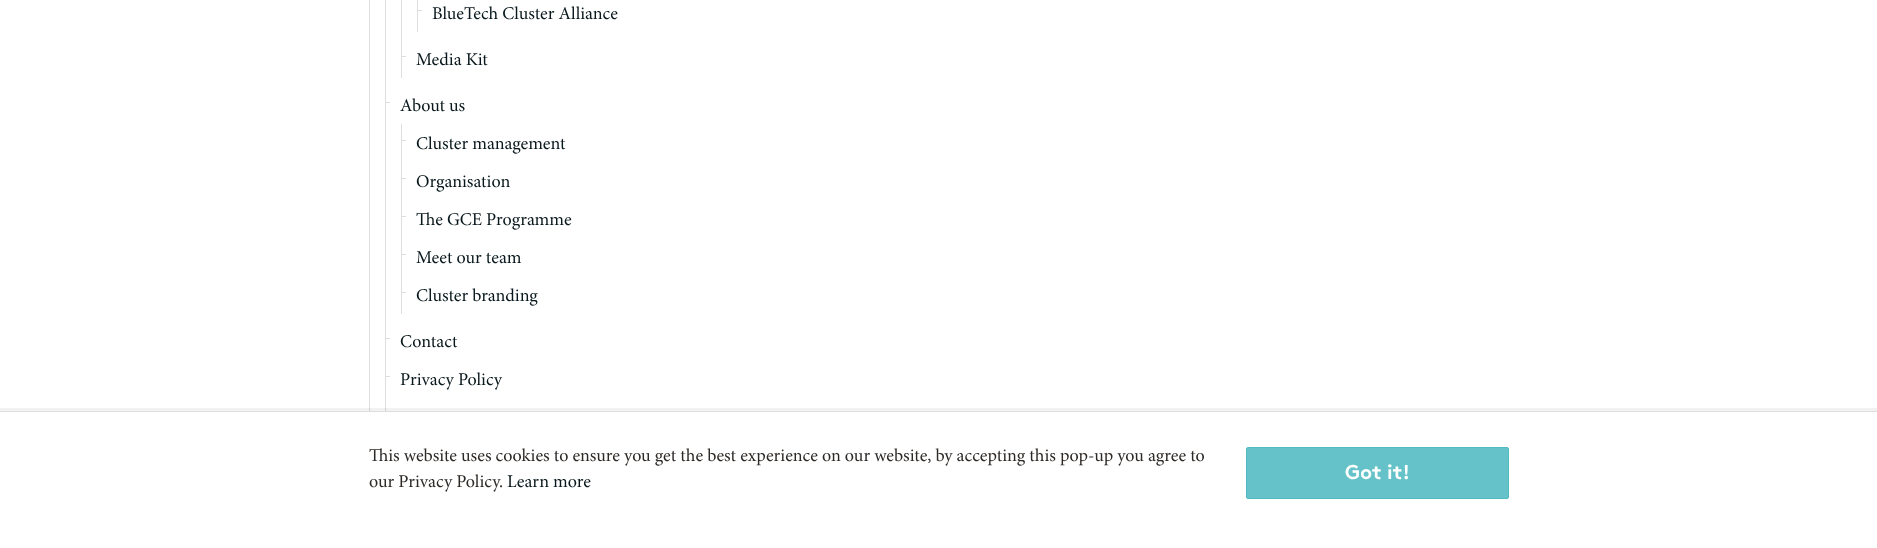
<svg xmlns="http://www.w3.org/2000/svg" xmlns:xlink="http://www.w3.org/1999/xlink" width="1877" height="548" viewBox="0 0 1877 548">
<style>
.cls-1{font:18px Minion;fill:#09181c}
.cls-2{font:18px Minion;fill:#2d2926}
.cls-3{font:bold 20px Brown;fill:#ffffff}
</style>
<rect width="100%" height="100%" fill="#ffffff"/>
<rect fill="#dedede" x="369" y="0" width="1" height="411"/>
<rect fill="#dedede" x="385" y="0" width="1" height="411"/>
<rect fill="#dedede" x="401" y="0" width="1" height="78"/>
<rect fill="#dedede" x="417" y="0" width="1" height="32"/>
<rect fill="#dedede" x="417" y="10" width="5" height="1"/>
<rect fill="#dedede" x="401" y="56" width="5" height="1"/>
<rect fill="#dedede" x="385" y="102" width="5" height="1"/>
<rect fill="#dedede" x="401" y="124" width="1" height="190"/>
<rect fill="#dedede" x="401" y="140" width="5" height="1"/>
<rect fill="#dedede" x="401" y="178" width="5" height="1"/>
<rect fill="#dedede" x="401" y="216" width="5" height="1"/>
<rect fill="#dedede" x="401" y="254" width="5" height="1"/>
<rect fill="#dedede" x="401" y="292" width="5" height="1"/>
<rect fill="#dedede" x="385" y="338" width="5" height="1"/>
<rect fill="#dedede" x="385" y="376" width="5" height="1"/>
<rect fill="#000000" fill-opacity="0.05" x="0" y="408" width="1877" height="3"/>
<rect fill="#dedede" x="0" y="411" width="1877" height="1"/>
<rect fill="#64c2c8" stroke="#51bbc1" x="1246.5" y="447.5" width="262" height="51" rx="1.5"/>
<text class="cls-1" x="432" y="19">BlueTech Cluster Alliance</text>
<text class="cls-1" x="416" y="65">Media Kit</text>
<text class="cls-1" x="400" y="111">About us</text>
<text class="cls-1" x="416" y="149">Cluster management</text>
<text class="cls-1" x="416" y="187">Organisation</text>
<text class="cls-1" x="416" y="225">The GCE Programme</text>
<text class="cls-1" x="416" y="263">Meet our team</text>
<text class="cls-1" x="416" y="301">Cluster branding</text>
<text class="cls-1" x="400" y="347">Contact</text>
<text class="cls-1" x="400" y="385">Privacy Policy</text>
<text class="cls-2"><tspan x="369" y="461">This website uses cookies to ensure you get the best experience on our website, by accepting this pop-up you agree to</tspan><tspan x="369" y="487">our Privacy Policy.</tspan></text>
<text class="cls-1" x="507" y="487">Learn more</text>
<text class="cls-3" x="1345" y="479">Got it!</text>
</svg>
